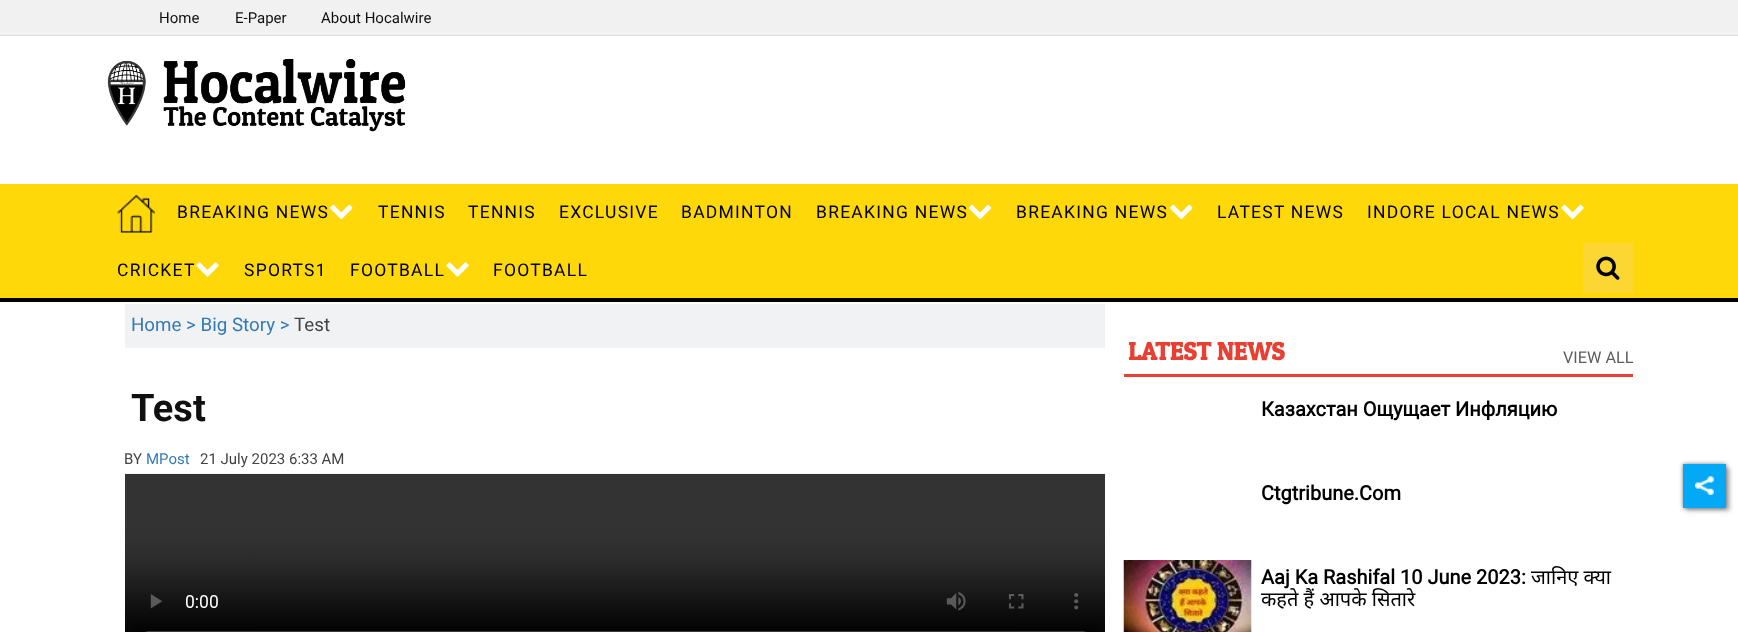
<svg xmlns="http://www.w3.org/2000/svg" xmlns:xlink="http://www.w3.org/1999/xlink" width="1738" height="632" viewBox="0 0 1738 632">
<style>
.cls-1{font:15px Roboto;fill:#101010}
.cls-2{font:17.5px Roboto;letter-spacing:1.25px;fill:#000000}
.cls-3{font:18.75px Roboto;fill:#337ab7}
.cls-4{font:18.75px Roboto;fill:#434343}
.cls-5{font:bold 38px Roboto;fill:#101010}
.cls-6{font:15px Roboto;fill:#434343}
.cls-7{font:15px Roboto;fill:#337ab7}
.cls-8{font:bold 25px Patua One;fill:#e93f33}
.cls-9{font:16.25px Roboto;fill:#5d5d5d}
.cls-10{font:bold 20px 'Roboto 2';fill:#000000}
.cls-11{font:20px Noto Sans;fill:#000000}
</style>
<rect width="100%" height="100%" fill="#ffffff"/>
<rect fill="#f1f1f1" x="0" y="0" width="1738" height="35"/>
<rect fill="#dddddd" x="0" y="35" width="1738" height="1"/>
<image xlink:href="image0.png" x="107" y="58" width="299" height="74"/>
<rect fill="#ffd809" x="0" y="184" width="1738" height="114"/>
<rect fill="#000000" x="0" y="298" width="1738" height="4"/>
<image xlink:href="image1.png" x="117" y="195" width="38" height="38"/>
<image xlink:href="image2.png" x="330" y="204" width="23" height="16"/>
<image xlink:href="image3.png" x="968" y="204" width="24" height="16"/>
<image xlink:href="image2.png" x="1170" y="204" width="23" height="16"/>
<image xlink:href="image4.png" x="1561" y="204" width="23" height="16"/>
<image xlink:href="image5.png" x="196" y="262" width="23" height="15"/>
<image xlink:href="image5.png" x="446" y="262" width="23" height="15"/>
<rect fill="#fcd733" x="1583" y="243" width="50" height="50"/>
<image xlink:href="image6.png" x="1596" y="256" width="24" height="24"/>
<rect fill="#f1f2f3" x="125" y="304" width="980" height="44"/>
<image xlink:href="image7.png" x="125" y="473" width="980" height="159"/>
<rect fill="#ea3f33" x="1124" y="374" width="509" height="3"/>
<image xlink:href="image8.png" x="1123" y="560" width="129" height="72"/>
<rect fill="#000000" fill-opacity="0.25" filter="blur(2px)" x="1686" y="468" width="44" height="43"/>
<rect fill="#000000" fill-opacity="0.5" filter="blur(2px)" x="1683" y="464" width="43" height="44"/>
<rect fill="#03a9f4" x="1683" y="464" width="43" height="44"/>
<image xlink:href="image9.png" x="1695" y="476" width="19" height="19"/>
<text class="cls-1" x="159" y="23">Home</text>
<text class="cls-1" x="235" y="23">E-Paper</text>
<text class="cls-1" x="321" y="23">About Hocalwire</text>
<text class="cls-2" x="177" y="218">BREAKING NEWS</text>
<text class="cls-2" x="378" y="218">TENNIS</text>
<text class="cls-2" x="468" y="218">TENNIS</text>
<text class="cls-2" x="559" y="218">EXCLUSIVE</text>
<text class="cls-2" x="681" y="218">BADMINTON</text>
<text class="cls-2" x="816" y="218">BREAKING NEWS</text>
<text class="cls-2" x="1016" y="218">BREAKING NEWS</text>
<text class="cls-2" x="1217" y="218">LATEST NEWS</text>
<text class="cls-2" x="1367" y="218">INDORE LOCAL NEWS</text>
<text class="cls-2" x="117" y="276">CRICKET</text>
<text class="cls-2" x="244" y="276">SPORTS1</text>
<text class="cls-2" x="350" y="276">FOOTBALL</text>
<text class="cls-2" x="493" y="276">FOOTBALL</text>
<text class="cls-3" x="131" y="331">Home &gt; Big Story &gt;</text>
<text class="cls-4" x="294" y="331">Test</text>
<text class="cls-5" x="131" y="421">Test</text>
<text class="cls-6" x="124" y="464">BY</text>
<text class="cls-7" x="146" y="464">MPost</text>
<text class="cls-6" x="200" y="464">21 July 2023 6:33 AM</text>
<text class="cls-8" x="1128" y="360">LATEST NEWS</text>
<text class="cls-9" x="1563" y="363">VIEW ALL</text>
<text class="cls-10" x="1261" y="416">Казахстан Ощущает Инфляцию</text>
<text class="cls-10" x="1261" y="500">Ctgtribune.Com</text>
<text class="cls-10" x="1261" y="584">Aaj Ka Rashifal 10 June 2023:</text>
<text class="cls-11" x="1531" y="584">जानिए क्या</text>
<text class="cls-11" x="1261" y="606">कहते हैं आपके सितारे</text>
</svg>
